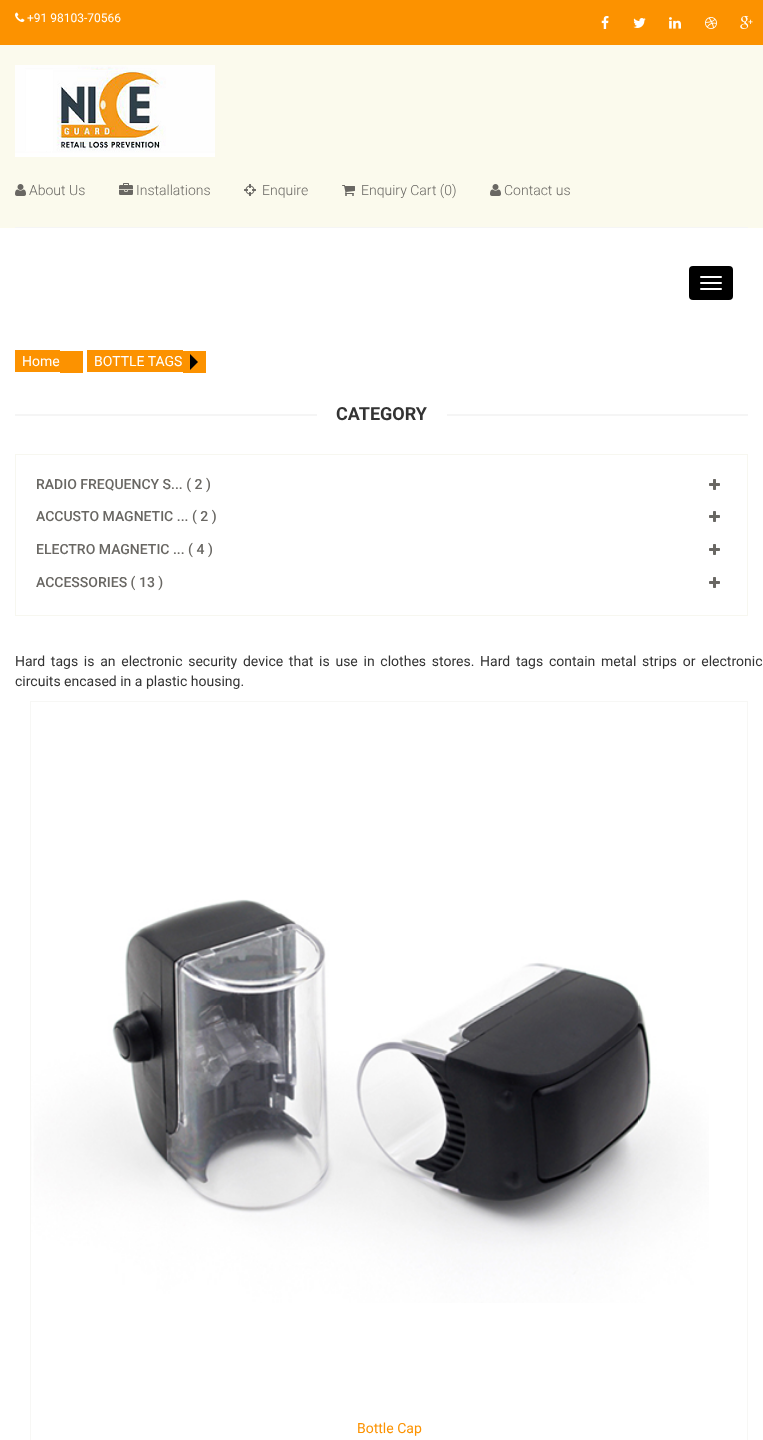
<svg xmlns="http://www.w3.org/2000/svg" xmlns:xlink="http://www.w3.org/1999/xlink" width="763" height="1440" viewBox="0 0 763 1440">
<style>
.cls-1{font:12px Roboto;fill:#ffffff}
.cls-2{font:300 14px Roboto;fill:#696763}
.cls-3{font:14px Roboto;fill:#ffffff}
.cls-4{font:bold 18px Roboto;fill:#333333}
.cls-5{font:500 14px Roboto;fill:#696763}
.cls-6{font:14px Roboto;fill:#333333}
.cls-7{font:14px Roboto;fill:#fc9200}
</style>
<rect width="100%" height="100%" fill="#ffffff"/>
<rect fill="#fc9200" x="0" y="0" width="763" height="45"/>
<image xlink:href="image0.png" x="15" y="12" width="10" height="10"/>
<image xlink:href="image1.png" x="601" y="16" width="8" height="13"/>
<image xlink:href="image2.png" x="633" y="18" width="13" height="10"/>
<image xlink:href="image3.png" x="669" y="17" width="12" height="12"/>
<image xlink:href="image4.png" x="705" y="17" width="12" height="12"/>
<image xlink:href="image5.png" x="740" y="16" width="13" height="13"/>
<rect fill="#fbfaed" x="0" y="45" width="763" height="183"/>
<rect fill="#f5f5f5" x="15" y="227" width="733" height="1"/>
<image xlink:href="image6.png" x="15" y="65" width="200" height="92"/>
<image xlink:href="image7.png" x="15" y="184" width="11" height="12"/>
<image xlink:href="image8.png" x="119" y="183" width="14" height="12"/>
<image xlink:href="image9.png" x="244" y="184" width="12" height="12"/>
<image xlink:href="image10.png" x="342" y="185" width="13" height="11"/>
<image xlink:href="image7.png" x="490" y="184" width="11" height="12"/>
<rect fill="#000000" x="689" y="266" width="44" height="34" rx="4"/>
<rect fill="#ffffff" x="700" y="276" width="22" height="2" rx="1"/>
<rect fill="#ffffff" x="700" y="282" width="22" height="2" rx="1"/>
<rect fill="#ffffff" x="700" y="288" width="22" height="2" rx="1"/>
<rect fill="#fc9200" x="15" y="350" width="45" height="22"/>
<rect fill="#fc9200" x="60" y="351" width="23" height="22"/>
<rect fill="#fc9200" x="87" y="350" width="96" height="22"/>
<rect fill="#fc9200" x="183" y="351" width="23" height="22"/>
<path fill="#000000" d="M190 370V354L198 362Z"/>
<rect fill="#f5f5f5" x="15" y="414" width="733" height="2"/>
<rect fill="#ffffff" x="317" y="414" width="130" height="2"/>
<rect fill="none" stroke="#f7f7f0" x="15.5" y="454.5" width="732" height="161"/>
<image xlink:href="image11.png" x="709" y="479" width="11" height="11"/>
<image xlink:href="image11.png" x="709" y="511" width="11" height="11"/>
<image xlink:href="image11.png" x="709" y="544" width="11" height="11"/>
<image xlink:href="image11.png" x="709" y="577" width="11" height="11"/>
<rect fill="none" stroke="#f7f7f5" x="30.5" y="701.5" width="717" height="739"/>
<image xlink:href="image12.png" x="31" y="899" width="678" height="404"/>
<text class="cls-1" x="27" y="22">+91 98103-70566</text>
<text class="cls-2" x="29" y="195">About Us</text>
<text class="cls-2" x="136" y="195">Installations</text>
<text class="cls-2" x="262" y="195">Enquire</text>
<text class="cls-2" x="361" y="195">Enquiry Cart (0)</text>
<text class="cls-2" x="504" y="195">Contact us</text>
<text class="cls-3" x="22" y="366">Home</text>
<text class="cls-3" x="94" y="366">BOTTLE TAGS</text>
<text class="cls-4" x="336" y="420">CATEGORY</text>
<text class="cls-5" x="36" y="489">RADIO FREQUENCY S... ( 2 )</text>
<text class="cls-5" x="36" y="521">ACCUSTO MAGNETIC ... ( 2 )</text>
<text class="cls-5" x="36" y="554">ELECTRO MAGNETIC ... ( 4 )</text>
<text class="cls-5" x="36" y="587">ACCESSORIES ( 13 )</text>
<text class="cls-6"><tspan x="15" y="666" word-spacing="2.25">Hard tags is an electronic security device that is use in clothes stores. Hard tags contain metal strips or electronic</tspan><tspan x="15" y="686">circuits encased in a plastic housing.</tspan></text>
<text class="cls-7" x="357" y="1433">Bottle Cap</text>
</svg>
